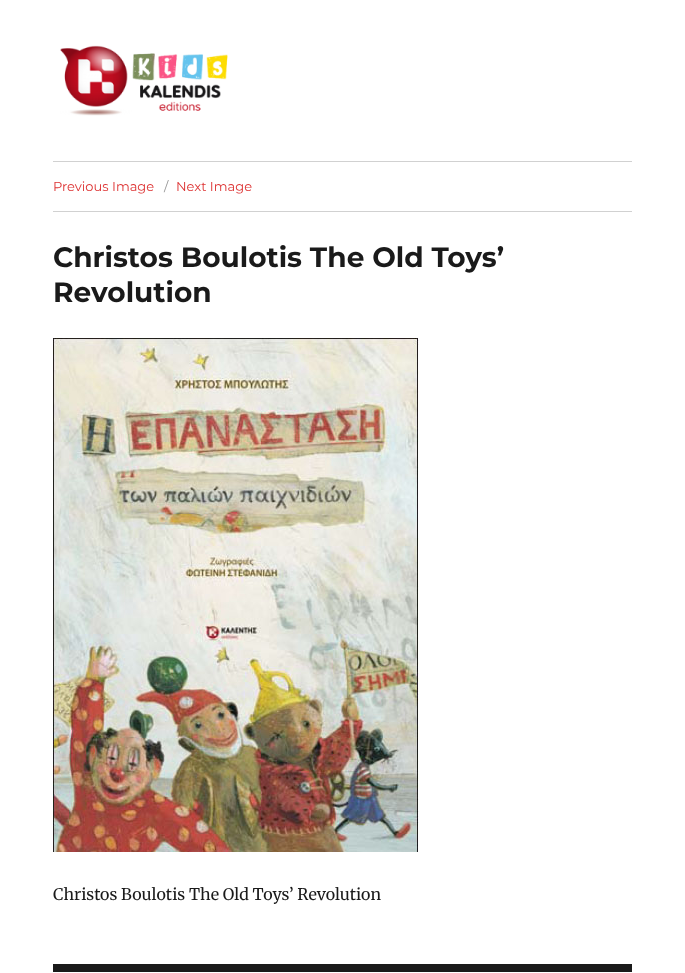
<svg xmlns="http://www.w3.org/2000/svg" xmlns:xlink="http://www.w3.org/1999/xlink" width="685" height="973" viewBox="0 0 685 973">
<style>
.cls-1{font:13px Montserrat;fill:#dd3333}
.cls-2{font:13px Montserrat;fill:#959595}
.cls-3{font:bold 28px Montserrat;fill:#1a1a1a}
.cls-4{font:16px Merriweather;fill:#1a1a1a}
</style>
<rect width="100%" height="100%" fill="#ffffff"/>
<image xlink:href="image0.png" x="60" y="45" width="168" height="71"/>
<rect fill="#d1d1d1" x="53" y="161" width="579" height="1"/>
<rect fill="#d1d1d1" x="53" y="211" width="579" height="1"/>
<image xlink:href="image1.png" x="53" y="338" width="366" height="514"/>
<rect fill="#1a1a1a" x="53" y="964" width="579" height="8"/>
<text class="cls-1" x="53" y="191">Previous Image</text>
<text class="cls-2" x="164" y="191">/</text>
<text class="cls-1" x="176" y="191">Next Image</text>
<text class="cls-3"><tspan x="53" y="267">Christos Boulotis The Old Toys’</tspan><tspan x="53" y="302">Revolution</tspan></text>
<text class="cls-4" x="53" y="900">Christos Boulotis The Old Toys’ Revolution</text>
</svg>
